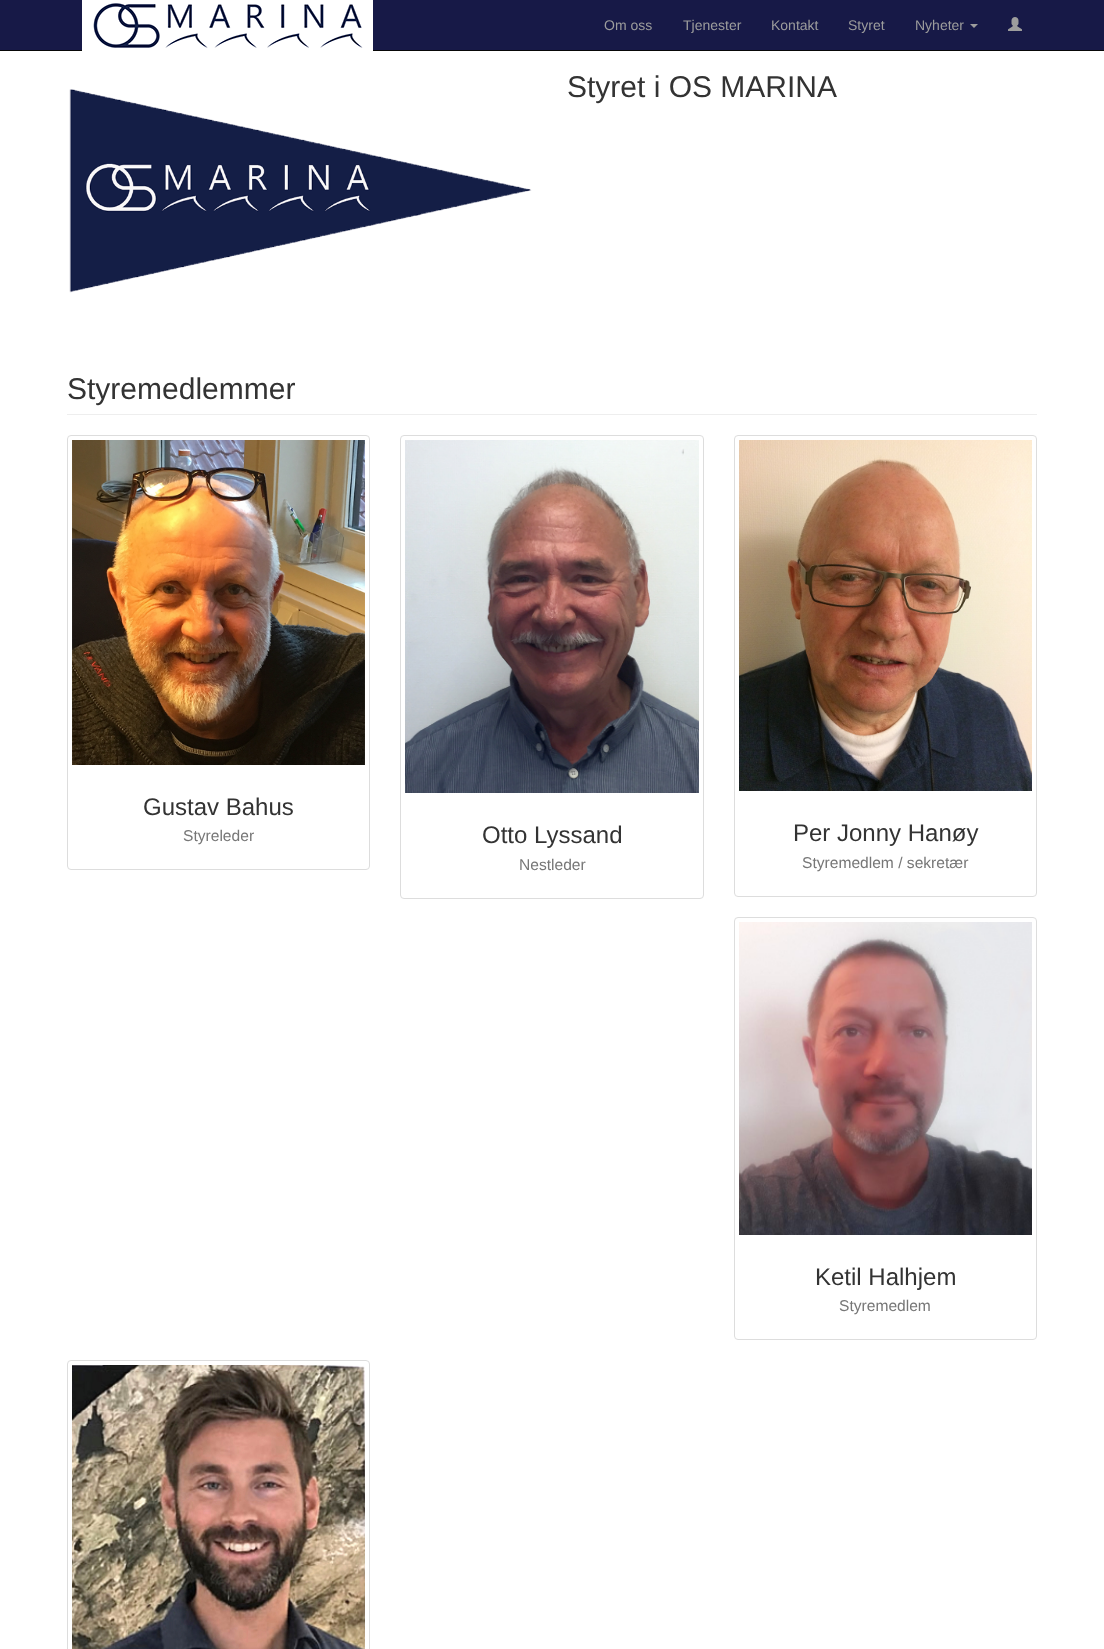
<svg xmlns="http://www.w3.org/2000/svg" xmlns:xlink="http://www.w3.org/1999/xlink" width="1104" height="1649" viewBox="0 0 1104 1649">
<style>
.cls-1{font:14px Liberation Sans;fill:#9d9d9d}
.cls-2{font:30px Liberation Sans;fill:#333333}
.cls-3{font:24px Liberation Sans;fill:#333333}
.cls-4{font:15.6px Liberation Sans;fill:#777777}
</style>
<rect width="100%" height="100%" fill="#ffffff"/>
<rect fill="#171947" x="0" y="0" width="1104" height="50"/>
<rect fill="#080808" x="0" y="50" width="1104" height="1"/>
<image xlink:href="image0.png" x="82" y="0" width="291" height="51"/>
<path fill="#9d9d9d" d="M970 24H978L974 28Z"/>
<image xlink:href="image1.png" x="1008" y="17" width="14" height="14"/>
<image xlink:href="image2.png" x="69" y="89" width="463" height="204"/>
<rect fill="#eeeeee" x="67" y="414" width="970" height="1"/>
<rect fill="none" stroke="#dddddd" x="67.5" y="435.5" width="302" height="434" rx="3.5"/>
<image xlink:href="image3.png" x="72" y="440" width="293" height="325"/>
<rect fill="none" stroke="#dddddd" x="400.5" y="435.5" width="303" height="463" rx="3.5"/>
<image xlink:href="image4.png" x="405" y="440" width="294" height="353"/>
<rect fill="none" stroke="#dddddd" x="734.5" y="435.5" width="302" height="461" rx="3.5"/>
<image xlink:href="image5.png" x="739" y="440" width="293" height="351"/>
<rect fill="none" stroke="#dddddd" x="734.5" y="917.5" width="302" height="422" rx="3.5"/>
<image xlink:href="image6.png" x="739" y="922" width="293" height="313"/>
<rect fill="none" stroke="#dddddd" x="67.5" y="1360.5" width="302" height="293" rx="3.5"/>
<image xlink:href="image7.png" x="72" y="1365" width="293" height="284"/>
<text class="cls-1" x="604" y="30">Om oss</text>
<text class="cls-1" x="683" y="30">Tjenester</text>
<text class="cls-1" x="771" y="30">Kontakt</text>
<text class="cls-1" x="848" y="30">Styret</text>
<text class="cls-1" x="915" y="30">Nyheter</text>
<text class="cls-2" x="567" y="97">Styret i OS MARINA</text>
<text class="cls-2" x="67" y="399">Styremedlemmer</text>
<text class="cls-3" x="143" y="815">Gustav Bahus</text>
<text class="cls-4" x="183" y="841">Styreleder</text>
<text class="cls-3" x="482" y="843">Otto Lyssand</text>
<text class="cls-4" x="519" y="870">Nestleder</text>
<text class="cls-3" x="793" y="841">Per Jonny Hanøy</text>
<text class="cls-4" x="802" y="868">Styremedlem / sekretær</text>
<text class="cls-3" x="815" y="1285">Ketil Halhjem</text>
<text class="cls-4" x="839" y="1311">Styremedlem</text>
</svg>
